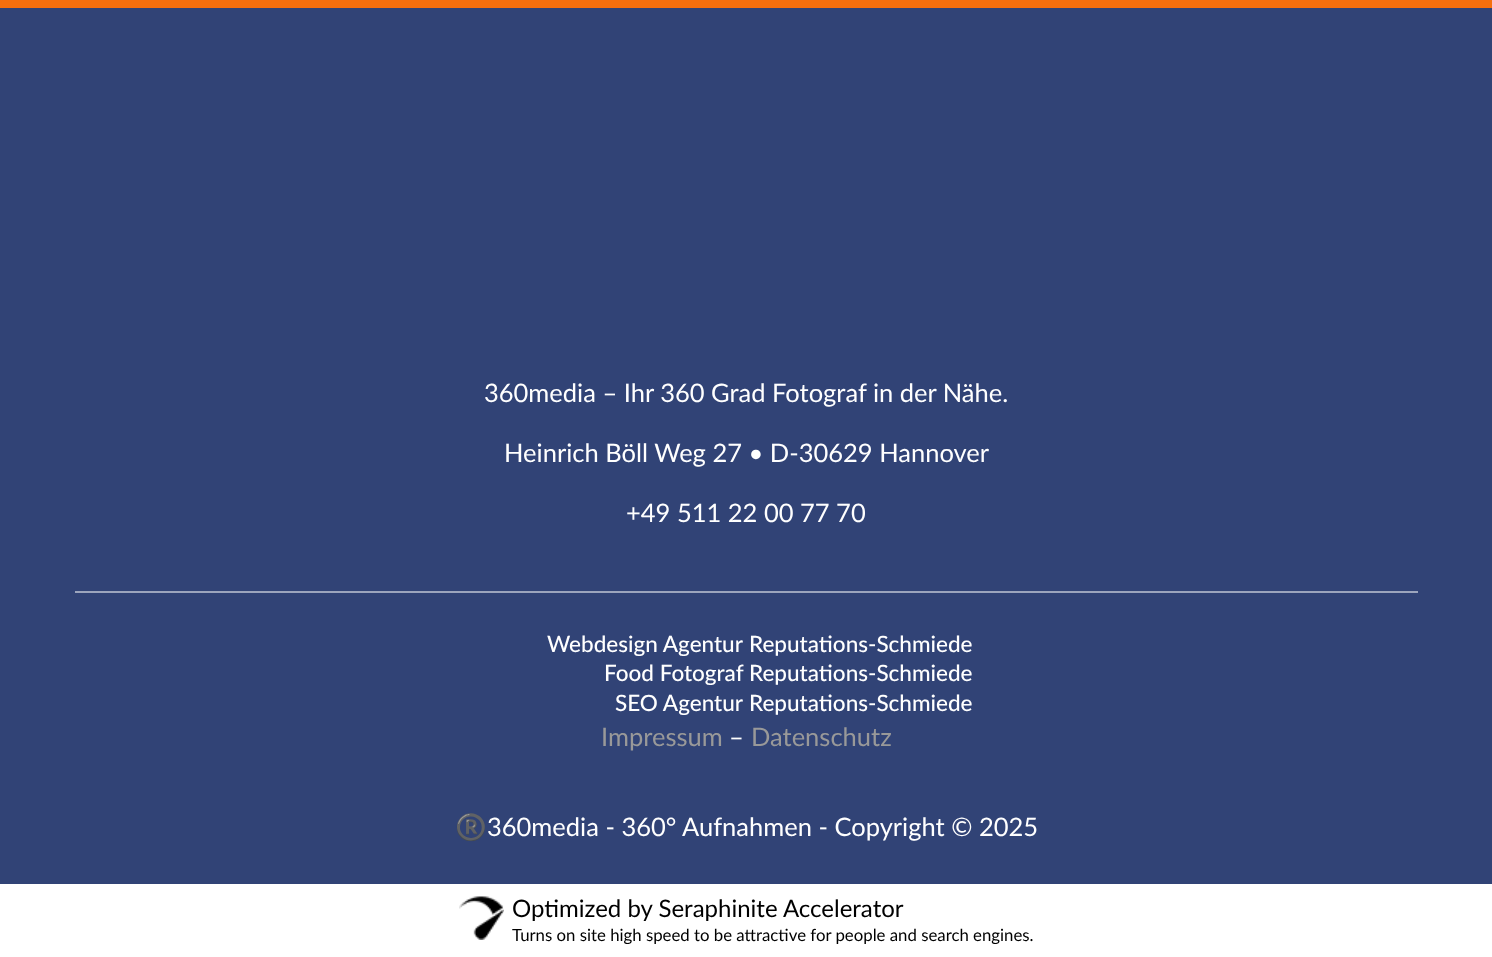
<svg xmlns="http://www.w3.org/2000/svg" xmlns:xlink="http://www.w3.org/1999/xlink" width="1492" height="957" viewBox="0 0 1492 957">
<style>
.cls-1{font:25.5px Lato;fill:#ffffff}
.cls-2{font:500 22.5px Lato;fill:#ffffff}
.cls-3{font:25.5px Lato;fill:#999999}
.cls-4{font:25.5px Noto Color Emoji;fill:#ffffff}
.cls-5{font:24px Lato;fill:#000000}
.cls-6{font:16.8px Lato;fill:#000000}
</style>
<rect width="100%" height="100%" fill="#ffffff"/>
<rect fill="#314376" x="0" y="8" width="1492" height="876"/>
<rect fill="#f66f0d" x="0" y="0" width="1492" height="8"/>
<rect fill="#9ca5bd" x="75" y="591" width="1343" height="2"/>
<image xlink:href="image0.png" x="459" y="896" width="45" height="44"/>
<text class="cls-1" x="484" y="402">360media – Ihr 360 Grad Fotograf in der Nähe.</text>
<text class="cls-1" x="504" y="462">Heinrich Böll Weg 27 • D-30629 Hannover</text>
<text class="cls-1" x="626" y="522">+49 511 22 00 77 70</text>
<text class="cls-2" x="547" y="652">Webdesign Agentur</text>
<text class="cls-2" x="749" y="652">Reputations-Schmiede</text>
<text class="cls-2" x="604" y="681">Food Fotograf</text>
<text class="cls-2" x="749" y="681">Reputations-Schmiede</text>
<text class="cls-2" x="615" y="711">SEO Agentur</text>
<text class="cls-2" x="749" y="711">Reputations-Schmiede</text>
<text class="cls-3" x="601" y="746">Impressum</text>
<text class="cls-1" x="729" y="746">–</text>
<text class="cls-3" x="751" y="746">Datenschutz</text>
<text class="cls-4" x="455" y="836">®️</text>
<text class="cls-1" x="487" y="836">360media - 360° Aufnahmen - Copyright © 2025</text>
<text class="cls-5" x="512" y="917">Optimized by Seraphinite Accelerator</text>
<text class="cls-6" x="512" y="941">Turns on site high speed to be attractive for people and search engines.</text>
</svg>
